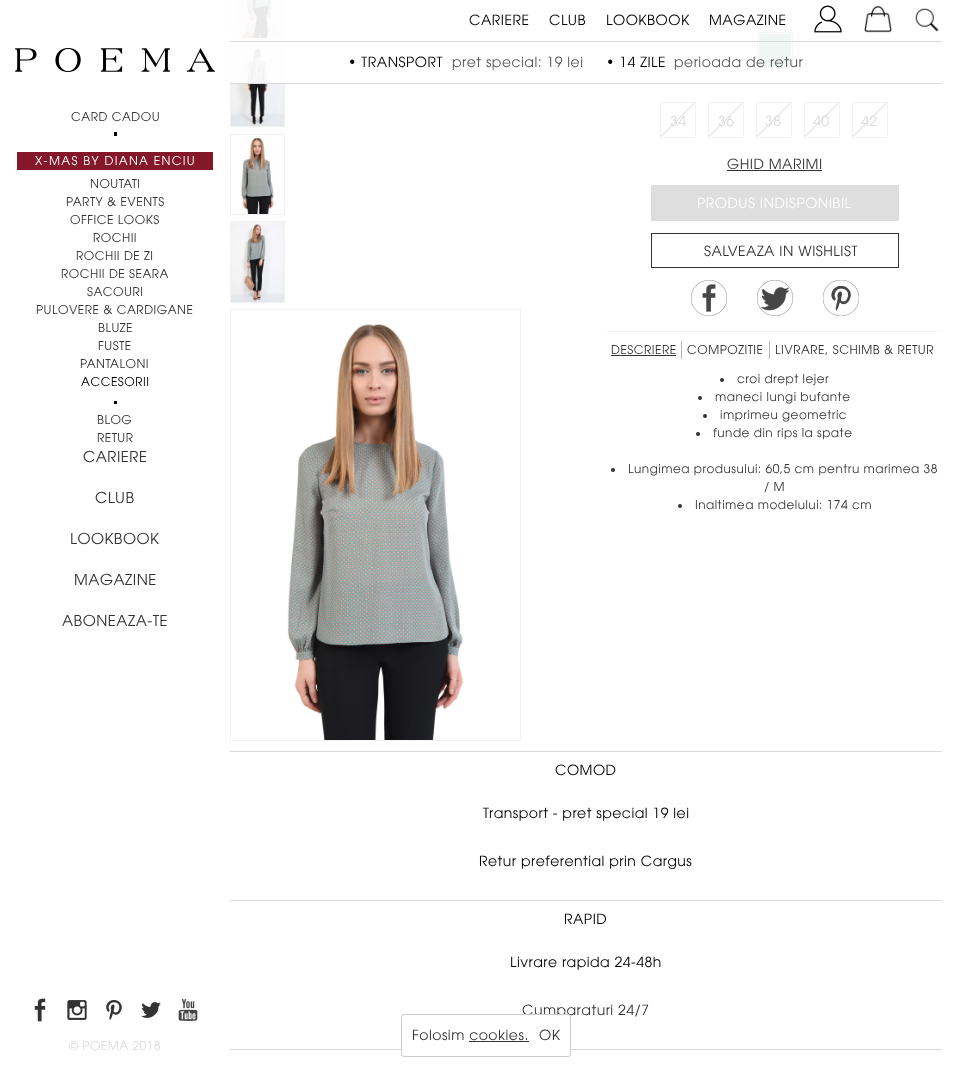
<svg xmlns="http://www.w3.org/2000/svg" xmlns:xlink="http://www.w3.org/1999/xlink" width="972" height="1065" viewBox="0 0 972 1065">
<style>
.cls-1{font:14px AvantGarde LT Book;letter-spacing:0.5px;fill:#000000}
.cls-2{font:14px AvantGarde LT Book;letter-spacing:0.5px;fill:#555555}
.cls-3{font:12px AvantGarde LT Book;letter-spacing:0.5px;fill:#333333}
.cls-4{font:12px AvantGarde LT Book;letter-spacing:1.3px;fill:#ffffff}
.cls-5{font:12px AvantGarde LT Book;letter-spacing:0.5px;fill:#000000}
.cls-6{font:15px AvantGarde LT Book;letter-spacing:0.5px;fill:#333333}
.cls-7{font:14px AvantGarde LT Book;letter-spacing:0.5px;fill:#dadbdc}
.cls-8{font:14px AvantGarde LT Book;letter-spacing:0.5px;fill:#333333}
.cls-9{font:14px AvantGarde LT Book;letter-spacing:0.5px;fill:#ffffff}
.cls-10{font:12px AvantGarde LT Book;letter-spacing:0.5px;fill:#dadbdc}
</style>
<rect width="100%" height="100%" fill="#ffffff"/>
<rect fill="none" stroke="#f2f2f2" x="230.5" y="-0.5" width="54" height="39"/>
<image xlink:href="image4.png" x="231" y="0" width="53" height="38"/>
<rect fill="none" stroke="#f2f2f2" x="230.5" y="46.5" width="54" height="80"/>
<image xlink:href="image5.png" x="231" y="47" width="53" height="79"/>
<rect fill="#6b9e8f" x="759" y="34" width="32" height="32"/>
<rect fill="none" stroke="#a6a6a6" x="757.5" y="32.5" width="35" height="35"/>
<rect fill="#ffffff" fill-opacity="0.9" x="230" y="0" width="563" height="84"/>
<image xlink:href="image0.png" x="814" y="5" width="28" height="28"/>
<image xlink:href="image1.png" x="15" y="48" width="200" height="24"/>
<rect fill="#dadada" x="230" y="41" width="712" height="1"/>
<rect fill="#dadadc" x="230" y="83" width="712" height="1"/>
<image xlink:href="image2.png" x="864" y="5" width="28" height="28"/>
<rect fill="#000000" x="114" y="132" width="3" height="4"/>
<image xlink:href="image3.png" x="915" y="8" width="24" height="24"/>
<rect fill="#84182a" x="17" y="152" width="196" height="18"/>
<rect fill="#000000" x="114" y="401" width="3" height="3"/>
<rect fill="none" stroke="#f2f2f2" x="230.5" y="134.5" width="54" height="80"/>
<image xlink:href="image6.png" x="240" y="135" width="35" height="79"/>
<rect fill="none" stroke="#f2f2f2" x="230.5" y="221.5" width="54" height="81"/>
<image xlink:href="image7.png" x="231" y="222" width="53" height="80"/>
<rect fill="none" stroke="#f2f2f2" x="230.5" y="309.5" width="290" height="431"/>
<image xlink:href="image8.png" x="287" y="324" width="177" height="416"/>
<image xlink:href="image9.png" x="660" y="102" width="36" height="36"/>
<rect fill="none" stroke="#f2f2f2" x="660.5" y="102.5" width="35" height="35" rx="1.5"/>
<image xlink:href="image9.png" x="708" y="102" width="36" height="36"/>
<rect fill="none" stroke="#f2f2f2" x="708.5" y="102.5" width="35" height="35" rx="1.5"/>
<image xlink:href="image9.png" x="756" y="102" width="36" height="36"/>
<rect fill="none" stroke="#f2f2f2" x="756.5" y="102.5" width="35" height="35" rx="1.5"/>
<image xlink:href="image9.png" x="804" y="102" width="36" height="36"/>
<rect fill="none" stroke="#f2f2f2" x="804.5" y="102.5" width="35" height="35" rx="1.5"/>
<image xlink:href="image9.png" x="852" y="102" width="36" height="36"/>
<rect fill="none" stroke="#f2f2f2" x="852.5" y="102.5" width="35" height="35" rx="1.5"/>
<rect fill="#333333" x="727" y="170" width="95" height="1"/>
<rect fill="#dedede" x="651" y="185" width="248" height="36"/>
<rect fill="none" stroke="#333333" x="651.5" y="233.5" width="247" height="34"/>
<image xlink:href="image10.png" x="691" y="280" width="36" height="36"/>
<image xlink:href="image11.png" x="757" y="280" width="36" height="36"/>
<image xlink:href="image12.png" x="823" y="280" width="36" height="36"/>
<rect fill="#f2f2f2" x="607" y="331" width="335" height="1"/>
<rect fill="#b3b3b3" x="681" y="341" width="1" height="18"/>
<rect fill="#333333" x="611" y="355" width="65" height="1"/>
<rect fill="#b3b3b3" x="769" y="341" width="1" height="18"/>
<circle fill="#333333" cx="722" cy="380" r="2"/>
<circle fill="#333333" cx="700" cy="398" r="2"/>
<circle fill="#333333" cx="705" cy="416" r="2"/>
<circle fill="#333333" cx="698" cy="434" r="2"/>
<circle fill="#333333" cx="613" cy="470" r="2"/>
<circle fill="#333333" cx="680" cy="506" r="2"/>
<rect fill="#dadada" x="230" y="751" width="712" height="1"/>
<rect fill="#dadada" x="230" y="900" width="712" height="1"/>
<rect fill="#dadada" x="230" y="1049" width="712" height="1"/>
<image xlink:href="image13.png" x="34" y="998" width="12" height="24"/>
<image xlink:href="image14.png" x="67" y="1000" width="20" height="20"/>
<image xlink:href="image15.png" x="106" y="1000" width="16" height="20"/>
<image xlink:href="image16.png" x="141" y="1002" width="20" height="16"/>
<image xlink:href="image17.png" x="178" y="999" width="20" height="22"/>
<text class="cls-1" x="469" y="25">CARIERE</text>
<text class="cls-1" x="549" y="25">CLUB</text>
<text class="cls-1" x="606" y="25">LOOKBOOK</text>
<text class="cls-1" x="709" y="25">MAGAZINE</text>
<text class="cls-1" x="348" y="67">• TRANSPORT</text>
<text class="cls-2" x="452" y="67">pret special: 19 lei</text>
<text class="cls-1" x="606" y="67">• 14 ZILE</text>
<text class="cls-2" x="674" y="67">perioada de retur</text>
<text class="cls-3" x="71" y="121">CARD CADOU</text>
<text class="cls-4" x="35" y="165">X-MAS BY DIANA ENCIU</text>
<text class="cls-3" x="90" y="188">NOUTATI</text>
<text class="cls-3" x="66" y="206">PARTY &amp; EVENTS</text>
<text class="cls-3" x="70" y="224">OFFICE LOOKS</text>
<text class="cls-3" x="93" y="242">ROCHII</text>
<text class="cls-3" x="76" y="260">ROCHII DE ZI</text>
<text class="cls-3" x="61" y="278">ROCHII DE SEARA</text>
<text class="cls-3" x="87" y="296">SACOURI</text>
<text class="cls-3" x="36" y="314">PULOVERE &amp; CARDIGANE</text>
<text class="cls-3"><tspan x="98" y="332">BLUZE</tspan><tspan x="98" y="350">FUSTE</tspan></text>
<text class="cls-3" x="80" y="368">PANTALONI</text>
<text class="cls-5" x="81" y="386">ACCESORII</text>
<text class="cls-3"><tspan x="97" y="424">BLOG</tspan><tspan x="97" y="442">RETUR</tspan></text>
<text class="cls-6" x="83" y="462">CARIERE</text>
<text class="cls-6" x="95" y="503">CLUB</text>
<text class="cls-6" x="70" y="544">LOOKBOOK</text>
<text class="cls-6" x="74" y="585">MAGAZINE</text>
<text class="cls-6" x="62" y="626">ABONEAZA-TE</text>
<text class="cls-7" x="670" y="126">34</text>
<text class="cls-7" x="718" y="126">36</text>
<text class="cls-7" x="765" y="126">38</text>
<text class="cls-7" x="813" y="126">40</text>
<text class="cls-7" x="861" y="126">42</text>
<text class="cls-8" x="727" y="169">GHID MARIMI</text>
<text class="cls-9" x="697" y="208">PRODUS INDISPONIBIL</text>
<text class="cls-8" x="704" y="256">SALVEAZA IN WISHLIST</text>
<text class="cls-3" x="611" y="354">DESCRIERE</text>
<text class="cls-3" x="687" y="354">COMPOZITIE</text>
<text class="cls-3" x="775" y="354">LIVRARE, SCHIMB &amp; RETUR</text>
<text class="cls-3" x="737" y="383">croi drept lejer</text>
<text class="cls-3" x="715" y="401">maneci lungi bufante</text>
<text class="cls-3" x="720" y="419">imprimeu geometric</text>
<text class="cls-3" x="713" y="437">funde din rips la spate</text>
<text class="cls-3" x="628" y="473">Lungimea produsului: 60,5 cm pentru marimea 38</text>
<text class="cls-3" x="764" y="491">/ M</text>
<text class="cls-3" x="695" y="509">Inaltimea modelului: 174 cm</text>
<text class="cls-1" x="555" y="775">COMOD</text>
<text class="cls-1" x="483" y="818">Transport - pret special 19 lei</text>
<text class="cls-1" x="479" y="866">Retur preferential prin Cargus</text>
<text class="cls-1" x="564" y="924">RAPID</text>
<text class="cls-1" x="510" y="967">Livrare rapida 24-48h</text>
<text class="cls-8" x="522" y="1015">Cumparaturi 24/7</text>
<rect fill="#ffffff" stroke="#cccccc" x="401.5" y="1014.5" width="169" height="42" rx="2.5"/>
<text class="cls-8" x="412" y="1040">Folosim cookies.</text>
<rect fill="#333333" x="469" y="1041" width="60" height="1"/>
<text class="cls-8" x="539" y="1040">OK</text>
<text class="cls-10" x="69" y="1050">© POEMA 2018</text>
</svg>
